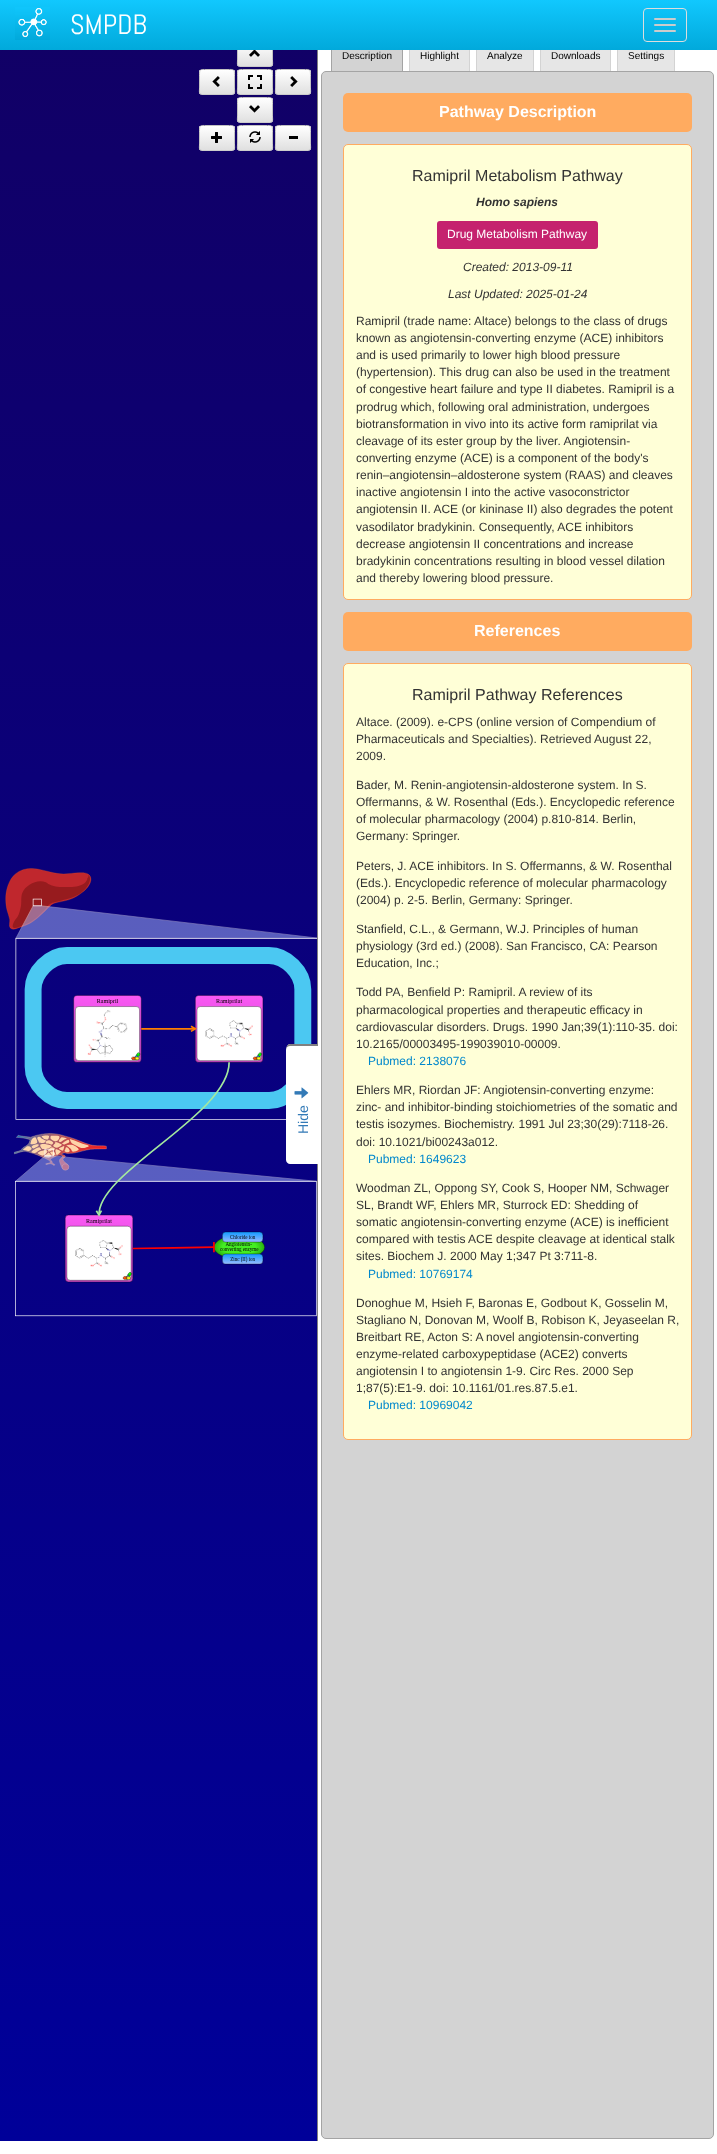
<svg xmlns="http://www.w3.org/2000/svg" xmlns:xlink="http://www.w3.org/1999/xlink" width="717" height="2154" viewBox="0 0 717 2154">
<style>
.cls-1{font:28px Abel;fill:#ffffff}
.cls-2{font:10px Liberation Sans;fill:#000000}
.cls-3{font:bold 16px Liberation Sans;fill:#ffffff}
.cls-4{font:16px Liberation Sans;fill:#333333}
.cls-5{font:italic bold 12px Liberation Sans;fill:#333333}
.cls-6{font:12px Liberation Sans;fill:#ffffff}
.cls-7{font:italic 12px Liberation Sans;fill:#333333}
.cls-8{font:12px Liberation Sans;fill:#333333}
.cls-9{font:12px Liberation Sans;fill:#0088cc}
.cls-10{font:14px Liberation Sans;fill:#337ab7}
</style>
<defs>
<linearGradient id="g1" gradientUnits="userSpaceOnUse" x1="358" y1="35" x2="359" y2="2141"><stop offset="0" stop-color="#110066"/><stop offset="1" stop-color="#000099"/></linearGradient>
<clipPath id="clip1"><rect x="237" y="41" width="36" height="26" rx="3"/></clipPath>
<linearGradient id="g2" gradientUnits="userSpaceOnUse" x1="255" y1="42" x2="255" y2="66"><stop offset="0" stop-color="#ffffff"/><stop offset="1" stop-color="#e0e0e0"/></linearGradient>
<linearGradient id="g3" gradientUnits="userSpaceOnUse" x1="359" y1="0" x2="359" y2="50"><stop offset="0" stop-color="#11c8fe"/><stop offset="1" stop-color="#01a9db"/></linearGradient>
<clipPath id="clip2"><rect x="199" y="69" width="36" height="26" rx="3"/></clipPath>
<linearGradient id="g4" gradientUnits="userSpaceOnUse" x1="217" y1="70" x2="217" y2="94"><stop offset="0" stop-color="#ffffff"/><stop offset="1" stop-color="#e0e0e0"/></linearGradient>
<clipPath id="clip3"><rect x="237" y="69" width="36" height="26" rx="3"/></clipPath>
<linearGradient id="g5" gradientUnits="userSpaceOnUse" x1="255" y1="70" x2="255" y2="94"><stop offset="0" stop-color="#ffffff"/><stop offset="1" stop-color="#e0e0e0"/></linearGradient>
<clipPath id="clip4"><rect x="275" y="69" width="36" height="26" rx="3"/></clipPath>
<linearGradient id="g6" gradientUnits="userSpaceOnUse" x1="293" y1="70" x2="293" y2="94"><stop offset="0" stop-color="#ffffff"/><stop offset="1" stop-color="#e0e0e0"/></linearGradient>
<clipPath id="clip5"><rect x="237" y="97" width="36" height="26" rx="3"/></clipPath>
<linearGradient id="g7" gradientUnits="userSpaceOnUse" x1="255" y1="98" x2="255" y2="122"><stop offset="0" stop-color="#ffffff"/><stop offset="1" stop-color="#e0e0e0"/></linearGradient>
<clipPath id="clip6"><rect x="199" y="125" width="36" height="26" rx="3"/></clipPath>
<linearGradient id="g8" gradientUnits="userSpaceOnUse" x1="217" y1="126" x2="217" y2="150"><stop offset="0" stop-color="#ffffff"/><stop offset="1" stop-color="#e0e0e0"/></linearGradient>
<clipPath id="clip7"><rect x="237" y="125" width="36" height="26" rx="3"/></clipPath>
<linearGradient id="g9" gradientUnits="userSpaceOnUse" x1="255" y1="126" x2="255" y2="150"><stop offset="0" stop-color="#ffffff"/><stop offset="1" stop-color="#e0e0e0"/></linearGradient>
<clipPath id="clip8"><rect x="275" y="125" width="36" height="26" rx="3"/></clipPath>
<linearGradient id="g10" gradientUnits="userSpaceOnUse" x1="293" y1="126" x2="293" y2="150"><stop offset="0" stop-color="#ffffff"/><stop offset="1" stop-color="#e0e0e0"/></linearGradient>
</defs>
<rect width="100%" height="100%" fill="#ffffff"/>
<rect fill="url(#g1)" x="0" y="50" width="317" height="2091"/>
<g clip-path="url(#clip1)">
<rect fill="url(#g2)" x="237" y="50" width="36" height="16"/>
</g>
<path fill="none" stroke="#cccccc" d="M272 66C271.5 66 270.5 66.5 270 66.5H240C239.5 66.5 238.5 66 238 66"/>
<path fill="none" stroke="#c2c2c2" d="M238 66C237 64.5 237.5 62 237.5 60.5V47.5C237.5 40.5 238 41.5 245 41.5H265C272 41.5 272.5 40.5 272.5 47.5V60.5C272.5 62 273 64.5 272 66"/>
<rect fill="#d3d3d3" x="332" y="50" width="70" height="21"/>
<rect fill="#d3d3d3" stroke="#a4a4a4" x="321.5" y="71.5" width="392" height="2067" rx="4.5"/>
<rect fill="none" stroke="#a4a4a4" x="331.5" y="41.5" width="71" height="30"/>
<rect fill="#e6e6e6" x="410" y="50" width="59" height="21"/>
<path fill="#d3d3d3" fill-rule="evenodd" d="M413 41H466C468 41 470 43 470 45V71H409V45C409 43 411 41 413 41ZM413 42H466C468 42 469 43 469 45V71H410V45C410 43 411 42 413 42Z"/>
<rect fill="#e6e6e6" x="477" y="50" width="56" height="21"/>
<path fill="#d3d3d3" fill-rule="evenodd" d="M480 41H530C532 41 534 43 534 45V71H476V45C476 43 478 41 480 41ZM480 42H530C532 42 533 43 533 45V71H477V45C477 43 478 42 480 42Z"/>
<rect fill="#e6e6e6" x="541" y="50" width="69" height="21"/>
<path fill="#d3d3d3" fill-rule="evenodd" d="M544 41H607C609 41 611 43 611 45V71H540V45C540 43 542 41 544 41ZM544 42H607C609 42 610 43 610 45V71H541V45C541 43 542 42 544 42Z"/>
<rect fill="#e6e6e6" x="618" y="50" width="56" height="21"/>
<path fill="#d3d3d3" fill-rule="evenodd" d="M621 41H671C673 41 675 43 675 45V71H617V45C617 43 619 41 621 41ZM621 42H671C673 42 674 43 674 45V71H618V45C618 43 619 42 621 42Z"/>
<rect fill="url(#g3)" x="0" y="0" width="717" height="50"/>
<image xlink:href="image0.png" x="15" y="7" width="35" height="33"/>
<rect fill="none" stroke="#dddddd" x="643.5" y="8.5" width="43" height="33" rx="3.5"/>
<rect fill="#cccccc" x="654" y="18" width="22" height="2" rx="1"/>
<rect fill="#cccccc" x="654" y="24" width="22" height="2" rx="1"/>
<rect fill="#cccccc" x="654" y="30" width="22" height="2" rx="1"/>
<image xlink:href="image1.png" x="5" y="868" width="312" height="449"/>
<image xlink:href="image2.png" x="249" y="50" width="11" height="7"/>
<g clip-path="url(#clip2)">
<rect fill="url(#g4)" x="199" y="70" width="36" height="24"/>
</g>
<path fill="none" stroke="#cccccc" d="M234 94C233.5 94 232.5 94.5 232 94.5H202C201.5 94.5 200.5 94 200 94"/>
<path fill="none" stroke="#c2c2c2" d="M200 94C199 92.5 199.5 90 199.5 88.5V75.5C199.5 68.5 200 69.5 207 69.5H227C234 69.5 234.5 68.5 234.5 75.5V88.5C234.5 90 235 92.5 234 94"/>
<image xlink:href="image3.png" x="212" y="76" width="8" height="11"/>
<g clip-path="url(#clip3)">
<rect fill="url(#g5)" x="237" y="70" width="36" height="24"/>
</g>
<path fill="none" stroke="#cccccc" d="M272 94C271.5 94 270.5 94.5 270 94.5H240C239.5 94.5 238.5 94 238 94"/>
<path fill="none" stroke="#c2c2c2" d="M238 94C237 92.5 237.5 90 237.5 88.5V75.5C237.5 68.5 238 69.5 245 69.5H265C272 69.5 272.5 68.5 272.5 75.5V88.5C272.5 90 273 92.5 272 94"/>
<image xlink:href="image4.png" x="248" y="75" width="14" height="14"/>
<g clip-path="url(#clip4)">
<rect fill="url(#g6)" x="275" y="70" width="36" height="24"/>
</g>
<path fill="none" stroke="#cccccc" d="M310 94C309.5 94 308.5 94.5 308 94.5H278C277.5 94.5 276.5 94 276 94"/>
<path fill="none" stroke="#c2c2c2" d="M276 94C275 92.5 275.5 90 275.5 88.5V75.5C275.5 68.5 276 69.5 283 69.5H303C310 69.5 310.5 68.5 310.5 75.5V88.5C310.5 90 311 92.5 310 94"/>
<image xlink:href="image5.png" x="290" y="76" width="8" height="11"/>
<g clip-path="url(#clip5)">
<rect fill="url(#g7)" x="237" y="98" width="36" height="24"/>
</g>
<path fill="none" stroke="#cccccc" d="M272 122C271.5 122 270.5 122.5 270 122.5H240C239.5 122.5 238.5 122 238 122"/>
<path fill="none" stroke="#c2c2c2" d="M238 122C237 120.5 237.5 118 237.5 116.5V103.5C237.5 96.5 238 97.5 245 97.5H265C272 97.5 272.5 96.5 272.5 103.5V116.5C272.5 118 273 120.5 272 122"/>
<image xlink:href="image6.png" x="249" y="105" width="11" height="8"/>
<g clip-path="url(#clip6)">
<rect fill="url(#g8)" x="199" y="126" width="36" height="24"/>
</g>
<path fill="none" stroke="#cccccc" d="M234 150C233.5 150 232.5 150.5 232 150.5H202C201.5 150.5 200.5 150 200 150"/>
<path fill="none" stroke="#c2c2c2" d="M200 150C199 148.5 199.5 146 199.5 144.5V131.5C199.5 124.5 200 125.5 207 125.5H227C234 125.5 234.5 124.5 234.5 131.5V144.5C234.5 146 235 148.5 234 150"/>
<image xlink:href="image7.png" x="211" y="132" width="11" height="11"/>
<g clip-path="url(#clip7)">
<rect fill="url(#g9)" x="237" y="126" width="36" height="24"/>
</g>
<path fill="none" stroke="#cccccc" d="M272 150C271.5 150 270.5 150.5 270 150.5H240C239.5 150.5 238.5 150 238 150"/>
<path fill="none" stroke="#c2c2c2" d="M238 150C237 148.5 237.5 146 237.5 144.5V131.5C237.5 124.5 238 125.5 245 125.5H265C272 125.5 272.5 124.5 272.5 131.5V144.5C272.5 146 273 148.5 272 150"/>
<image xlink:href="image8.png" x="249" y="131" width="12" height="12"/>
<g clip-path="url(#clip8)">
<rect fill="url(#g10)" x="275" y="126" width="36" height="24"/>
</g>
<path fill="none" stroke="#cccccc" d="M310 150C309.5 150 308.5 150.5 308 150.5H278C277.5 150.5 276.5 150 276 150"/>
<path fill="none" stroke="#c2c2c2" d="M276 150C275 148.5 275.5 146 275.5 144.5V131.5C275.5 124.5 276 125.5 283 125.5H303C310 125.5 310.5 124.5 310.5 131.5V144.5C310.5 146 311 148.5 310 150"/>
<rect fill="#000000" x="289" y="136" width="9" height="3"/>
<rect fill="#808080" x="317" y="50" width="1" height="2091"/>
<rect fill="#ffab60" x="343" y="93" width="349" height="39" rx="5"/>
<rect fill="#ffffd7" stroke="#ffab60" x="343.5" y="144.5" width="348" height="455" rx="4.5"/>
<rect fill="#c5226e" x="437" y="221" width="161" height="28" rx="3"/>
<rect fill="#ffab60" x="343" y="612" width="349" height="39" rx="5"/>
<rect fill="#ffffd7" stroke="#ffab60" x="343.5" y="663.5" width="348" height="776" rx="4.5"/>
<path fill="#ffffff" d="M286 1160V1050C286 1047 288 1044 290 1044H318V1164H290C288 1164 286 1162 286 1160Z"/>
<path fill="#808080" fill-rule="evenodd" d="M286 1160V1050C286 1047 288 1044 290 1044H318V1164H290C288 1164 286 1162 286 1160ZM286 1160V1050C286 1047 288 1046 290 1046H318V1164H290C288 1164 286 1162 286 1160Z"/>
<image xlink:href="image9.png" x="294" y="1087" width="15" height="12"/>
<text class="cls-1" x="70" y="34">SMPDB</text>
<text class="cls-2" x="342" y="59">Description</text>
<text class="cls-2" x="420" y="59">Highlight</text>
<text class="cls-2" x="487" y="59">Analyze</text>
<text class="cls-2" x="551" y="59">Downloads</text>
<text class="cls-2" x="628" y="59">Settings</text>
<text class="cls-3" x="439" y="117">Pathway Description</text>
<text class="cls-4" x="412" y="181">Ramipril Metabolism Pathway</text>
<text class="cls-5" x="476" y="206">Homo sapiens</text>
<text class="cls-6" x="447" y="238">Drug Metabolism Pathway</text>
<text class="cls-7" x="463" y="271">Created: 2013-09-11</text>
<text class="cls-7" x="448" y="298">Last Updated: 2025-01-24</text>
<text class="cls-8"><tspan x="356" y="325">Ramipril (trade name: Altace) belongs to the class of drugs</tspan><tspan x="356" y="342">known as angiotensin-converting enzyme (ACE) inhibitors</tspan><tspan x="356" y="359">and is used primarily to lower high blood pressure</tspan><tspan x="356" y="376">(hypertension). This drug can also be used in the treatment</tspan><tspan x="356" y="393">of congestive heart failure and type II diabetes. Ramipril is a</tspan><tspan x="356" y="411">prodrug which, following oral administration, undergoes</tspan><tspan x="356" y="428">biotransformation in vivo into its active form ramiprilat via</tspan><tspan x="356" y="445">cleavage of its ester group by the liver. Angiotensin-</tspan><tspan x="356" y="462">converting enzyme (ACE) is a component of the body's</tspan><tspan x="356" y="479">renin–angiotensin–aldosterone system (RAAS) and cleaves</tspan><tspan x="356" y="496">inactive angiotensin I into the active vasoconstrictor</tspan><tspan x="356" y="513">angiotensin II. ACE (or kininase II) also degrades the potent</tspan><tspan x="356" y="531">vasodilator bradykinin. Consequently, ACE inhibitors</tspan><tspan x="356" y="548">decrease angiotensin II concentrations and increase</tspan><tspan x="356" y="565">bradykinin concentrations resulting in blood vessel dilation</tspan><tspan x="356" y="582">and thereby lowering blood pressure.</tspan></text>
<text class="cls-3" x="474" y="636">References</text>
<text class="cls-4" x="412" y="700">Ramipril Pathway References</text>
<text class="cls-8"><tspan x="356" y="726">Altace. (2009). e-CPS (online version of Compendium of</tspan><tspan x="356" y="743">Pharmaceuticals and Specialties). Retrieved August 22,</tspan><tspan x="356" y="760">2009.</tspan></text>
<text class="cls-8"><tspan x="356" y="789">Bader, M. Renin-angiotensin-aldosterone system. In S.</tspan><tspan x="356" y="806">Offermanns, &amp; W. Rosenthal (Eds.). Encyclopedic reference</tspan><tspan x="356" y="823">of molecular pharmacology (2004) p.810-814. Berlin,</tspan><tspan x="356" y="840">Germany: Springer.</tspan></text>
<text class="cls-8"><tspan x="356" y="870">Peters, J. ACE inhibitors. In S. Offermanns, &amp; W. Rosenthal</tspan><tspan x="356" y="887">(Eds.). Encyclopedic reference of molecular pharmacology</tspan><tspan x="356" y="904">(2004) p. 2-5. Berlin, Germany: Springer.</tspan></text>
<text class="cls-8"><tspan x="356" y="933">Stanfield, C.L., &amp; Germann, W.J. Principles of human</tspan><tspan x="356" y="950">physiology (3rd ed.) (2008). San Francisco, CA: Pearson</tspan><tspan x="356" y="967">Education, Inc.;</tspan></text>
<text class="cls-8"><tspan x="356" y="996">Todd PA, Benfield P: Ramipril. A review of its</tspan><tspan x="356" y="1014">pharmacological properties and therapeutic efficacy in</tspan><tspan x="356" y="1031">cardiovascular disorders. Drugs. 1990 Jan;39(1):110-35. doi:</tspan><tspan x="356" y="1048">10.2165/00003495-199039010-00009.</tspan></text>
<text class="cls-9" x="368" y="1065">Pubmed: 2138076</text>
<text class="cls-8"><tspan x="356" y="1094">Ehlers MR, Riordan JF: Angiotensin-converting enzyme:</tspan><tspan x="356" y="1111">zinc- and inhibitor-binding stoichiometries of the somatic and</tspan><tspan x="356" y="1128">testis isozymes. Biochemistry. 1991 Jul 23;30(29):7118-26.</tspan><tspan x="356" y="1146">doi: 10.1021/bi00243a012.</tspan></text>
<text class="cls-9" x="368" y="1163">Pubmed: 1649623</text>
<text class="cls-8"><tspan x="356" y="1192">Woodman ZL, Oppong SY, Cook S, Hooper NM, Schwager</tspan><tspan x="356" y="1209">SL, Brandt WF, Ehlers MR, Sturrock ED: Shedding of</tspan><tspan x="356" y="1226">somatic angiotensin-converting enzyme (ACE) is inefficient</tspan><tspan x="356" y="1243">compared with testis ACE despite cleavage at identical stalk</tspan><tspan x="356" y="1260">sites. Biochem J. 2000 May 1;347 Pt 3:711-8.</tspan></text>
<text class="cls-9" x="368" y="1278">Pubmed: 10769174</text>
<text class="cls-8"><tspan x="356" y="1307">Donoghue M, Hsieh F, Baronas E, Godbout K, Gosselin M,</tspan><tspan x="356" y="1324">Stagliano N, Donovan M, Woolf B, Robison K, Jeyaseelan R,</tspan><tspan x="356" y="1341">Breitbart RE, Acton S: A novel angiotensin-converting</tspan><tspan x="356" y="1358">enzyme-related carboxypeptidase (ACE2) converts</tspan><tspan x="356" y="1375">angiotensin I to angiotensin 1-9. Circ Res. 2000 Sep</tspan><tspan x="356" y="1392">1;87(5):E1-9. doi: 10.1161/01.res.87.5.e1.</tspan></text>
<text class="cls-9" x="368" y="1409">Pubmed: 10969042</text>
<text class="cls-10" x="308" y="1134" transform="rotate(-90 308 1134)">Hide</text>
</svg>
